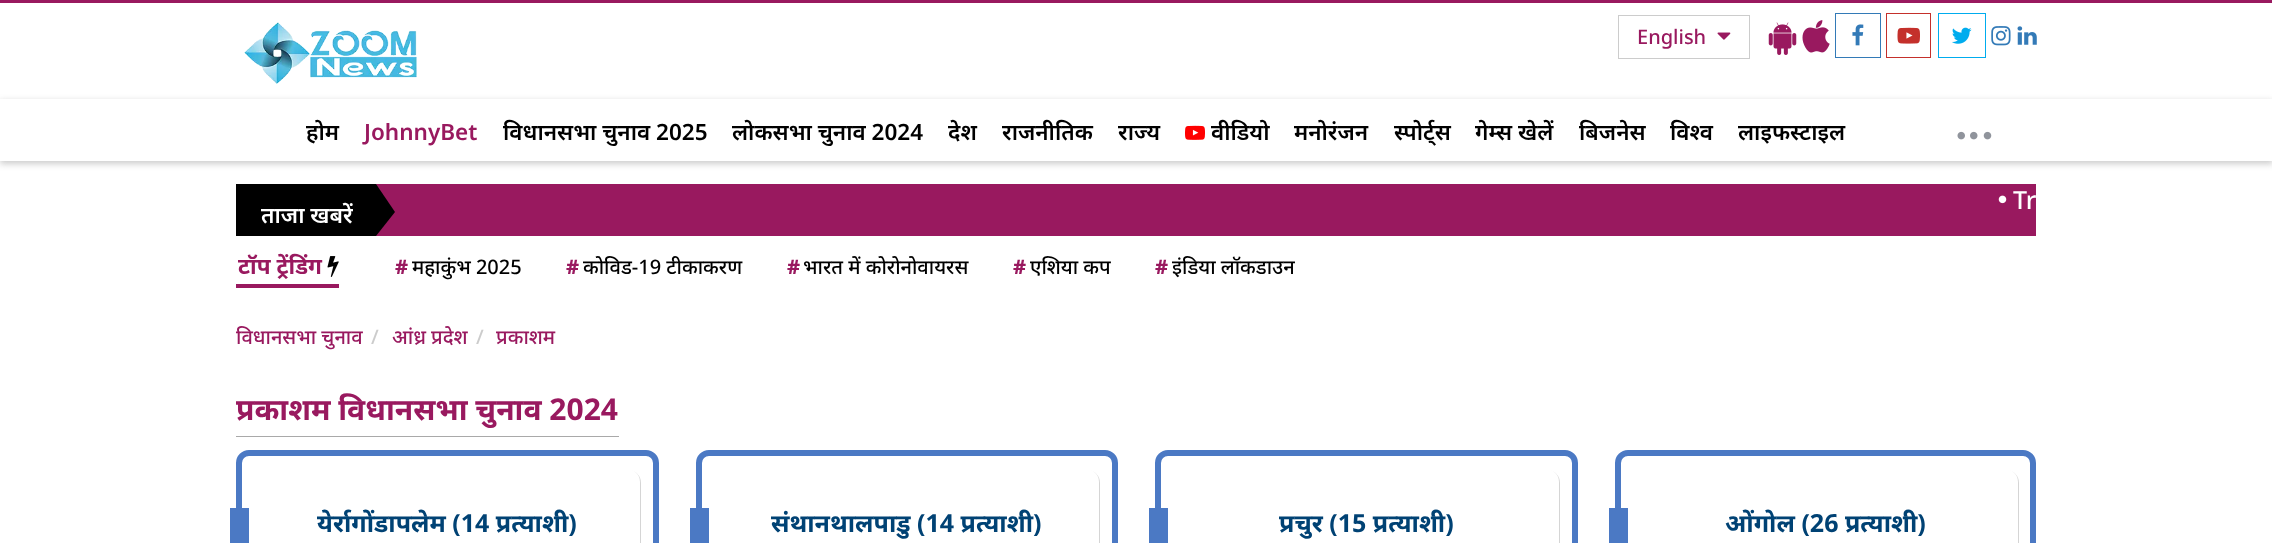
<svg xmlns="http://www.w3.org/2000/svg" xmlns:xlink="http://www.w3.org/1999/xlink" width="2272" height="543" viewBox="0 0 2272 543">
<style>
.cls-1{font:500 20px Noto Sans;fill:#99195f}
.cls-2{font:600 22.5px Noto Sans;fill:#000000}
.cls-3{font:600 22.5px Noto Sans;fill:#99195f}
.cls-4{font:500 25px Noto Sans;fill:#ffffff}
.cls-5{font:600 22.5px Noto Sans;fill:#ffffff}
.cls-6{font:bold 22.5px Noto Sans;fill:#99195f}
.cls-7{font:800 20px Noto Sans;fill:#99195f}
.cls-8{font:500 20px Noto Sans;fill:#000000}
.cls-9{font:500 20px Noto Sans;fill:#cccccc}
.cls-10{font:bold 30px Noto Sans;fill:#99195f}
.cls-11{font:bold 25px Noto Sans;fill:#004274}
</style>
<defs>
<clipPath id="clip1"><path d="M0 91H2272V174H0ZM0 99H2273V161H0Z" clip-rule="evenodd"/></clipPath>
</defs>
<rect width="100%" height="100%" fill="#ffffff"/>
<rect fill="#99195f" x="0" y="0" width="2272" height="3"/>
<image xlink:href="image0.png" x="244" y="22" width="173" height="62"/>
<rect fill="none" stroke="#cccccc" x="1618.5" y="15.5" width="131" height="43"/>
<image xlink:href="image1.png" x="1717" y="32" width="14" height="8"/>
<image xlink:href="image2.png" x="1768" y="22" width="29" height="33"/>
<image xlink:href="image3.png" x="1802" y="20" width="28" height="33"/>
<rect fill="none" stroke="#337ab7" x="1835.5" y="13.5" width="45" height="44"/>
<image xlink:href="image4.png" x="1852" y="24" width="12" height="22"/>
<rect fill="none" stroke="#c4302b" x="1886.5" y="13.5" width="44" height="44"/>
<image xlink:href="image5.png" x="1897" y="27" width="23" height="17"/>
<rect fill="none" stroke="#00acee" x="1938.5" y="13.5" width="47" height="44"/>
<image xlink:href="image6.png" x="1952" y="27" width="20" height="17"/>
<image xlink:href="image7.png" x="1991" y="26" width="20" height="20"/>
<image xlink:href="image8.png" x="2017" y="26" width="20" height="19"/>
<g clip-path="url(#clip1)">
<rect fill="#585858" fill-opacity="0.3" filter="blur(3px)" x="0" y="101" width="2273" height="63"/>
</g>
<image xlink:href="image9.png" x="1185" y="125" width="20" height="15"/>
<image xlink:href="image10.png" x="1957" y="131" width="8" height="9"/>
<image xlink:href="image11.png" x="1970" y="131" width="8" height="9"/>
<image xlink:href="image12.png" x="1983" y="131" width="9" height="9"/>
<rect fill="#99195f" x="376" y="184" width="1660" height="52"/>
<image xlink:href="image13.png" x="1998" y="195" width="9" height="9"/>
<rect fill="#000000" x="236" y="184" width="140" height="52"/>
<path fill="#000000" d="M376 236V184L395 212Z"/>
<rect fill="#99195f" x="236" y="284" width="103" height="4"/>
<image xlink:href="image14.png" x="327" y="256" width="12" height="21"/>
<rect fill="#a9a9a9" x="236" y="436" width="383" height="1"/>
<rect fill="none" stroke="#4b79c4" stroke-width="6" x="239" y="453" width="417" height="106" rx="10"/>
<rect fill="#4b79c4" x="230" y="508" width="19" height="35"/>
<rect fill="#d5d5d5" filter="blur(0.5px)" x="256" y="470" width="385" height="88" rx="13"/>
<rect fill="#ffffff" x="255" y="469" width="385" height="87" rx="13"/>
<rect fill="none" stroke="#4b79c4" stroke-width="6" x="699" y="453" width="416" height="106" rx="10"/>
<rect fill="#4b79c4" x="690" y="508" width="19" height="35"/>
<rect fill="#d5d5d5" filter="blur(0.5px)" x="716" y="470" width="384" height="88" rx="13"/>
<rect fill="#ffffff" x="715" y="469" width="384" height="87" rx="13"/>
<rect fill="none" stroke="#4b79c4" stroke-width="6" x="1158" y="453" width="417" height="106" rx="10"/>
<rect fill="#4b79c4" x="1149" y="508" width="19" height="35"/>
<rect fill="#d5d5d5" filter="blur(0.5px)" x="1175" y="470" width="385" height="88" rx="13"/>
<rect fill="#ffffff" x="1174" y="469" width="385" height="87" rx="13"/>
<rect fill="none" stroke="#4b79c4" stroke-width="6" x="1618" y="453" width="415" height="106" rx="10"/>
<rect fill="#4b79c4" x="1609" y="508" width="19" height="35"/>
<rect fill="#d5d5d5" filter="blur(0.5px)" x="1635" y="470" width="384" height="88" rx="13"/>
<rect fill="#ffffff" x="1634" y="469" width="384" height="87" rx="13"/>
<text class="cls-1" x="1637" y="44">English</text>
<text class="cls-2" x="306" y="140">होम</text>
<text class="cls-3" x="364" y="140">JohnnyBet</text>
<text class="cls-2" x="503" y="140">विधानसभा चुनाव 2025</text>
<text class="cls-2" x="732" y="140">लोकसभा चुनाव 2024</text>
<text class="cls-2" x="948" y="140">देश</text>
<text class="cls-2" x="1002" y="140">राजनीतिक</text>
<text class="cls-2" x="1118" y="140">राज्य</text>
<text class="cls-2" x="1211" y="140">वीडियो</text>
<text class="cls-2" x="1294" y="140">मनोरंजन</text>
<text class="cls-2" x="1394" y="140">स्पोर्ट्स</text>
<text class="cls-2" x="1475" y="140">गेम्स खेलें</text>
<text class="cls-2" x="1579" y="140">बिजनेस</text>
<text class="cls-2" x="1670" y="140">विश्व</text>
<text class="cls-2" x="1738" y="140">लाइफस्टाइल</text>
<text class="cls-4" x="2013" y="209">Tr</text>
<text class="cls-5" x="261" y="223">ताजा खबरें</text>
<text class="cls-6" x="238" y="274">टॉप ट्रेंडिंग</text>
<text class="cls-7" x="395" y="274">#</text>
<text class="cls-8" x="412" y="274">महाकुंभ 2025</text>
<text class="cls-7" x="566" y="274">#</text>
<text class="cls-8" x="583" y="274">कोविड-19 टीकाकरण</text>
<text class="cls-7" x="787" y="274">#</text>
<text class="cls-8" x="803" y="274">भारत में कोरोनोवायरस</text>
<text class="cls-7" x="1013" y="274">#</text>
<text class="cls-8" x="1030" y="274">एशिया कप</text>
<text class="cls-7" x="1155" y="274">#</text>
<text class="cls-8" x="1172" y="274">इंडिया लॉकडाउन</text>
<text class="cls-1" x="236" y="344">विधानसभा चुनाव</text>
<text class="cls-9" x="371" y="344">/</text>
<text class="cls-1" x="392" y="344">आंध्र प्रदेश</text>
<text class="cls-9" x="476" y="344">/</text>
<text class="cls-1" x="496" y="344">प्रकाशम</text>
<text class="cls-10" x="236" y="420">प्रकाशम विधानसभा चुनाव 2024</text>
<text class="cls-11" x="317" y="532">येर्रागोंडापलेम (14 प्रत्याशी)</text>
<text class="cls-11" x="771" y="532">संथानथालपाडु (14 प्रत्याशी)</text>
<text class="cls-11" x="1279" y="532">प्रचुर (15 प्रत्याशी)</text>
<text class="cls-11" x="1725" y="532">ओंगोल (26 प्रत्याशी)</text>
</svg>
